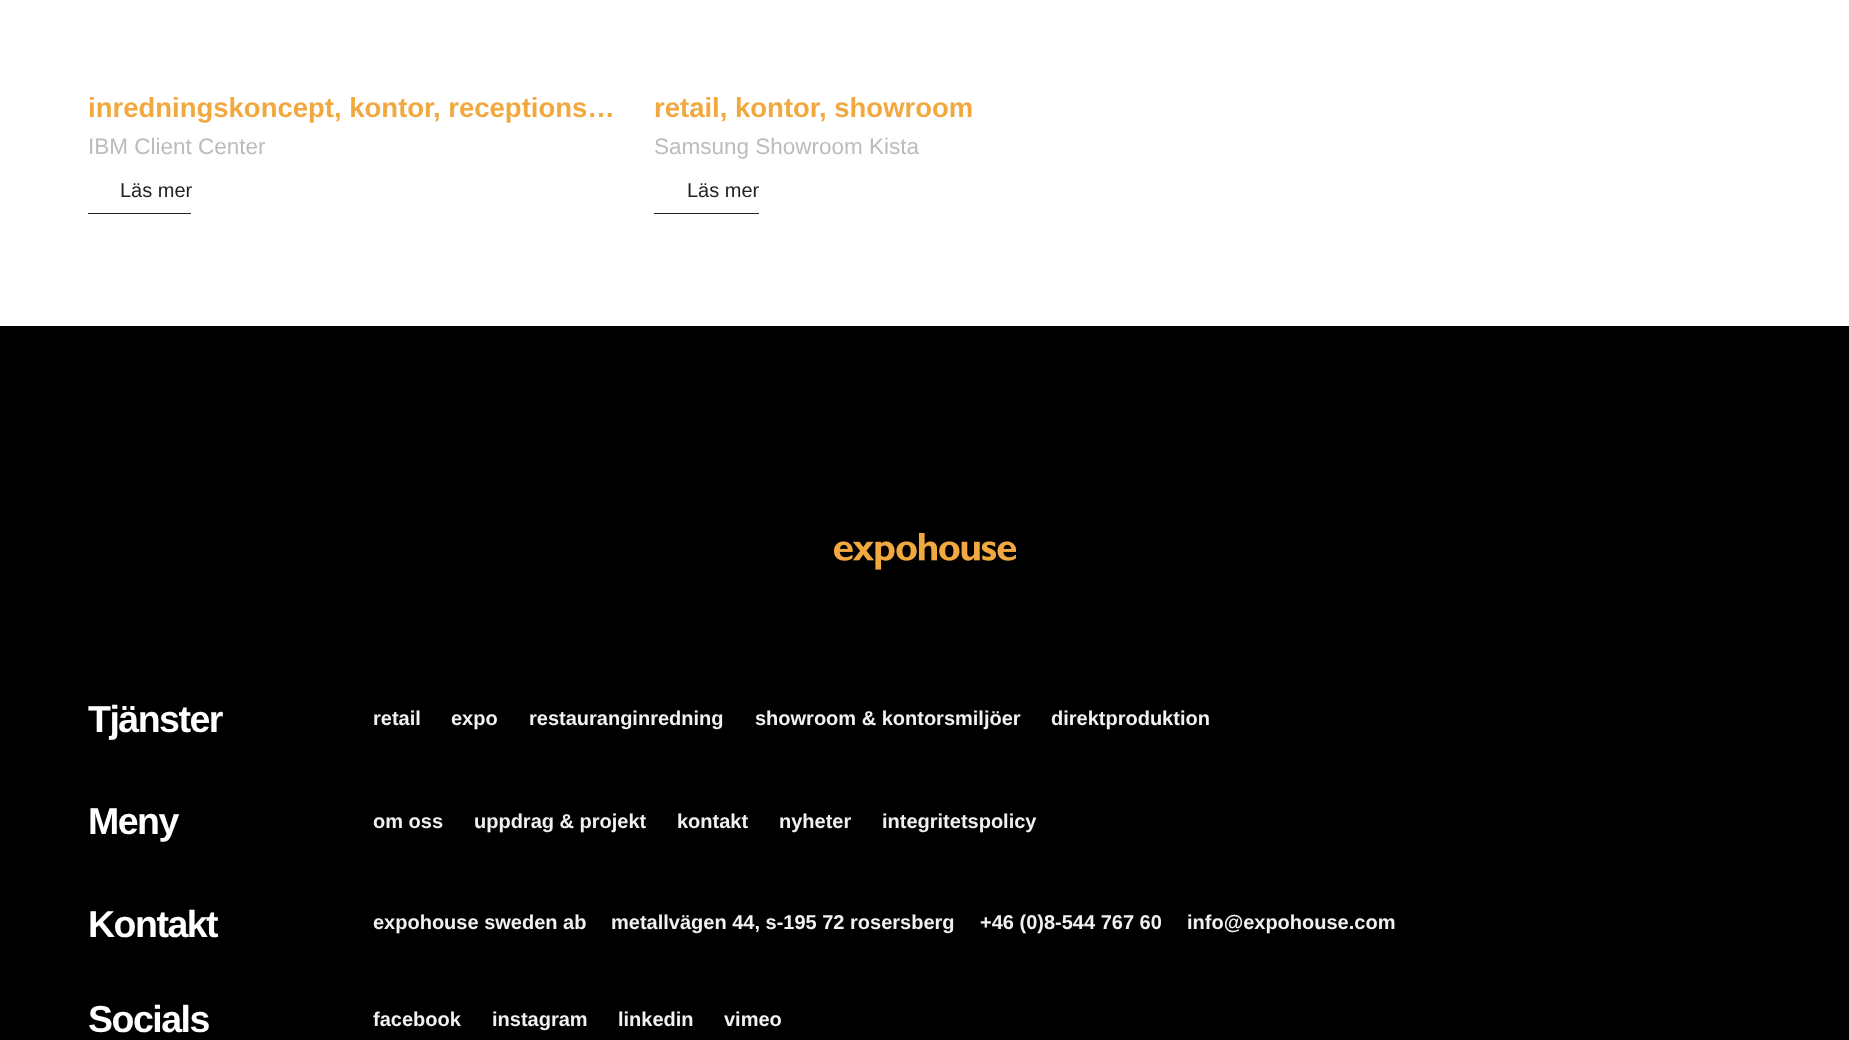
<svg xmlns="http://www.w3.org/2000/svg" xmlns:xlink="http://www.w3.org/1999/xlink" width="1849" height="1040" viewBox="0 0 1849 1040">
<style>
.cls-1{font:bold 27.5px Liberation Sans;fill:#f1a93f}
.cls-2{font:22.5px Liberation Sans;fill:#bcbcbc}
.cls-3{font:20px Liberation Sans;fill:#222222}
.cls-4{font:bold 37.5px Liberation Sans;letter-spacing:-1.5px;fill:#ffffff}
.cls-5{font:bold 20px Liberation Sans;fill:#f1f1f1}
</style>
<rect width="100%" height="100%" fill="#ffffff"/>
<rect fill="#222222" x="88" y="213" width="103" height="1"/>
<rect fill="#222222" x="654" y="213" width="105" height="1"/>
<rect fill="#000000" x="0" y="326" width="1849" height="714"/>
<image xlink:href="image0.png" x="834" y="533" width="182" height="37"/>
<text class="cls-1" x="88" y="117">inredningskoncept, kontor</text>
<text class="cls-1" x="433" y="117">, receptions…</text>
<text class="cls-2" x="88" y="154">IBM Client Center</text>
<text class="cls-3" x="120" y="197">Läs mer</text>
<text class="cls-1" x="654" y="117">retail, kontor</text>
<text class="cls-1" x="819" y="117">, showroom</text>
<text class="cls-2" x="654" y="154">Samsung Showroom Kista</text>
<text class="cls-3" x="687" y="197">Läs mer</text>
<text class="cls-4" x="88" y="732">Tjänster</text>
<text class="cls-5" x="373" y="725">retail</text>
<text class="cls-5" x="451" y="725">expo</text>
<text class="cls-5" x="529" y="725">restauranginredning</text>
<text class="cls-5" x="755" y="725">showroom &amp; kontorsmiljöer</text>
<text class="cls-5" x="1051" y="725">direktproduktion</text>
<text class="cls-4" x="88" y="834">Meny</text>
<text class="cls-5" x="373" y="828">om oss</text>
<text class="cls-5" x="474" y="828">uppdrag &amp; projekt</text>
<text class="cls-5" x="677" y="828">kontakt</text>
<text class="cls-5" x="779" y="828">nyheter</text>
<text class="cls-5" x="882" y="828">integritetspolicy</text>
<text class="cls-4" x="88" y="937">Kontakt</text>
<text class="cls-5" x="373" y="929">expohouse sweden ab</text>
<text class="cls-5" x="611" y="929">metallvägen 44, s-195 72 rosersberg</text>
<text class="cls-5" x="980" y="929">+46 (0)8-544 767 60</text>
<text class="cls-5" x="1187" y="929">info@expohouse.com</text>
<text class="cls-4" x="88" y="1032">Socials</text>
<text class="cls-5" x="373" y="1026">facebook</text>
<text class="cls-5" x="492" y="1026">instagram</text>
<text class="cls-5" x="618" y="1026">linkedin</text>
<text class="cls-5" x="724" y="1026">vimeo</text>
</svg>
